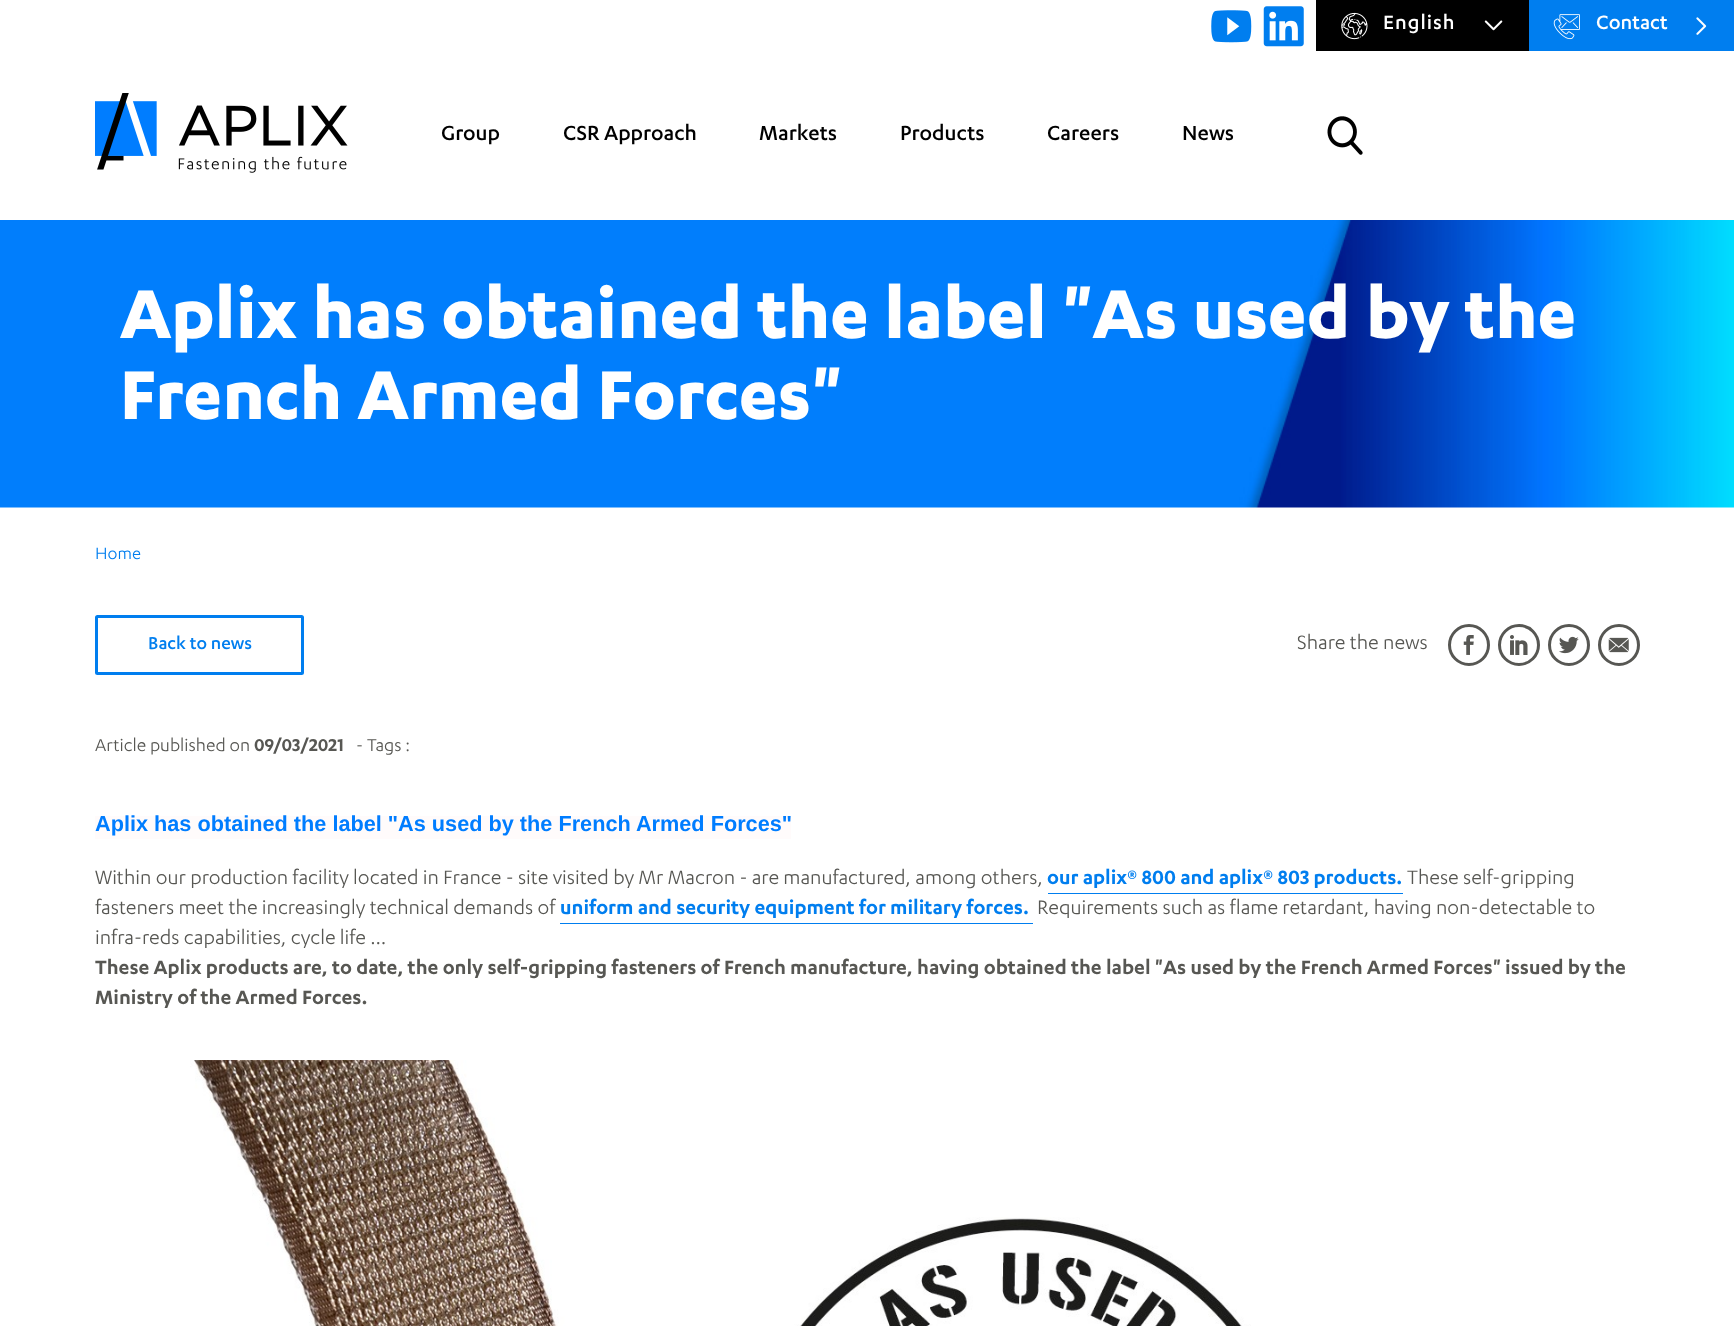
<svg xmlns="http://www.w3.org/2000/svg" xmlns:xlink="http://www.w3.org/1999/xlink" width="1734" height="1326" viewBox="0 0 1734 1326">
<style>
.cls-1{font:500 22.5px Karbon;letter-spacing:1px;fill:#ffffff}
.cls-2{font:500 22.5px Karbon;fill:#ffffff}
.cls-3{font:500 23.75px Karbon;fill:#000000}
.cls-4{font:bold 80px Karbon;fill:#ffffff}
.cls-5{font:19px Karbon;fill:#007eef}
.cls-6{font:500 20px Karbon;fill:#007eef}
.cls-7{font:22.5px Karbon;fill:#575753}
.cls-8{font:20px Karbon;fill:#575753}
.cls-9{font:600 20px Karbon;fill:#575753}
.cls-10{font:bold 21.7px Liberation Sans;fill:#007dff}
.cls-11{font:600 22.5px Karbon;fill:#007eef}
.cls-12{font:600 22.5px Karbon;fill:#575753}
</style>
<rect width="100%" height="100%" fill="#ffffff"/>
<image xlink:href="image0.png" x="1211" y="10" width="41" height="33"/>
<image xlink:href="image1.png" x="1263" y="6" width="41" height="41"/>
<rect fill="#007eef" x="1529" y="0" width="205" height="51"/>
<rect fill="#000000" x="1316" y="0" width="213" height="51"/>
<image xlink:href="image2.png" x="1341" y="12" width="27" height="28"/>
<image xlink:href="image3.png" x="1484" y="20" width="19" height="11"/>
<image xlink:href="image4.png" x="1553" y="14" width="27" height="26"/>
<image xlink:href="image5.png" x="1696" y="17" width="11" height="18"/>
<image xlink:href="image6.png" x="95" y="93" width="253" height="80"/>
<image xlink:href="image7.png" x="1327" y="116" width="36" height="39"/>
<image xlink:href="image8.png" x="0" y="220" width="1734" height="288"/>
<rect fill="none" stroke="#007eef" stroke-width="3" x="96.5" y="616.5" width="206" height="57" rx="1"/>
<circle fill="none" stroke="#575753" stroke-width="3" cx="1469" cy="645" r="19.5"/>
<image xlink:href="image9.png" x="1463" y="635" width="11" height="20"/>
<circle fill="none" stroke="#575753" stroke-width="3" cx="1519" cy="645" r="19.5"/>
<image xlink:href="image10.png" x="1510" y="635" width="18" height="20"/>
<circle fill="none" stroke="#575753" stroke-width="3" cx="1569" cy="645" r="19.5"/>
<image xlink:href="image11.png" x="1559" y="636" width="20" height="18"/>
<circle fill="none" stroke="#575753" stroke-width="3" cx="1619" cy="645" r="19.5"/>
<image xlink:href="image12.png" x="1608" y="637" width="21" height="16"/>
<rect fill="#fffbfb" x="95" y="816" width="696" height="23"/>
<rect fill="#007eef" x="1048" y="893" width="355" height="1"/>
<rect fill="#007eef" x="560" y="923" width="473" height="1"/>
<image xlink:href="image13.png" x="190" y="1060" width="1061" height="266"/>
<text class="cls-1" x="1383" y="29">English</text>
<text class="cls-2" x="1596" y="29">Contact</text>
<text class="cls-3" x="441" y="140">Group</text>
<text class="cls-3" x="563" y="140">CSR Approach</text>
<text class="cls-3" x="759" y="140">Markets</text>
<text class="cls-3" x="900" y="140">Products</text>
<text class="cls-3" x="1047" y="140">Careers</text>
<text class="cls-3" x="1182" y="140">News</text>
<text class="cls-4"><tspan x="120" y="338">Aplix has obtained the label "As used by the</tspan><tspan x="120" y="419">French Armed Forces"</tspan></text>
<text class="cls-5" x="95" y="559">Home</text>
<text class="cls-6" x="148" y="649">Back to news</text>
<text class="cls-7" x="1297" y="649">Share the news</text>
<text class="cls-8" x="95" y="751">Article published on</text>
<text class="cls-9" x="254" y="751">09/03/2021</text>
<text class="cls-8" x="356" y="751">- Tags :</text>
<text class="cls-10" x="95" y="831">Aplix has obtained the label "As used by the French Armed Forces"</text>
<text class="cls-7" x="95" y="884">Within our production facility located in France - site visited by Mr Macron - are manufactured, among others,</text>
<text class="cls-11" x="1047" y="884">our aplix® 800 and aplix® 803 products.</text>
<text class="cls-7" x="1407" y="884">These self-gripping</text>
<text class="cls-7" x="95" y="914">fasteners meet the increasingly technical demands of</text>
<text class="cls-11" x="560" y="914">uniform and security equipment for military forces.</text>
<text class="cls-7" x="1037" y="914">Requirements such as flame retardant, having non-detectable to</text>
<text class="cls-7" x="95" y="944">infra-reds capabilities, cycle life …</text>
<text class="cls-12"><tspan x="95" y="974">These Aplix products are, to date, the only self-gripping fasteners of French manufacture, having obtained the label "As used by the French Armed Forces" issued by the</tspan><tspan x="95" y="1004">Ministry of the Armed Forces.</tspan></text>
</svg>
